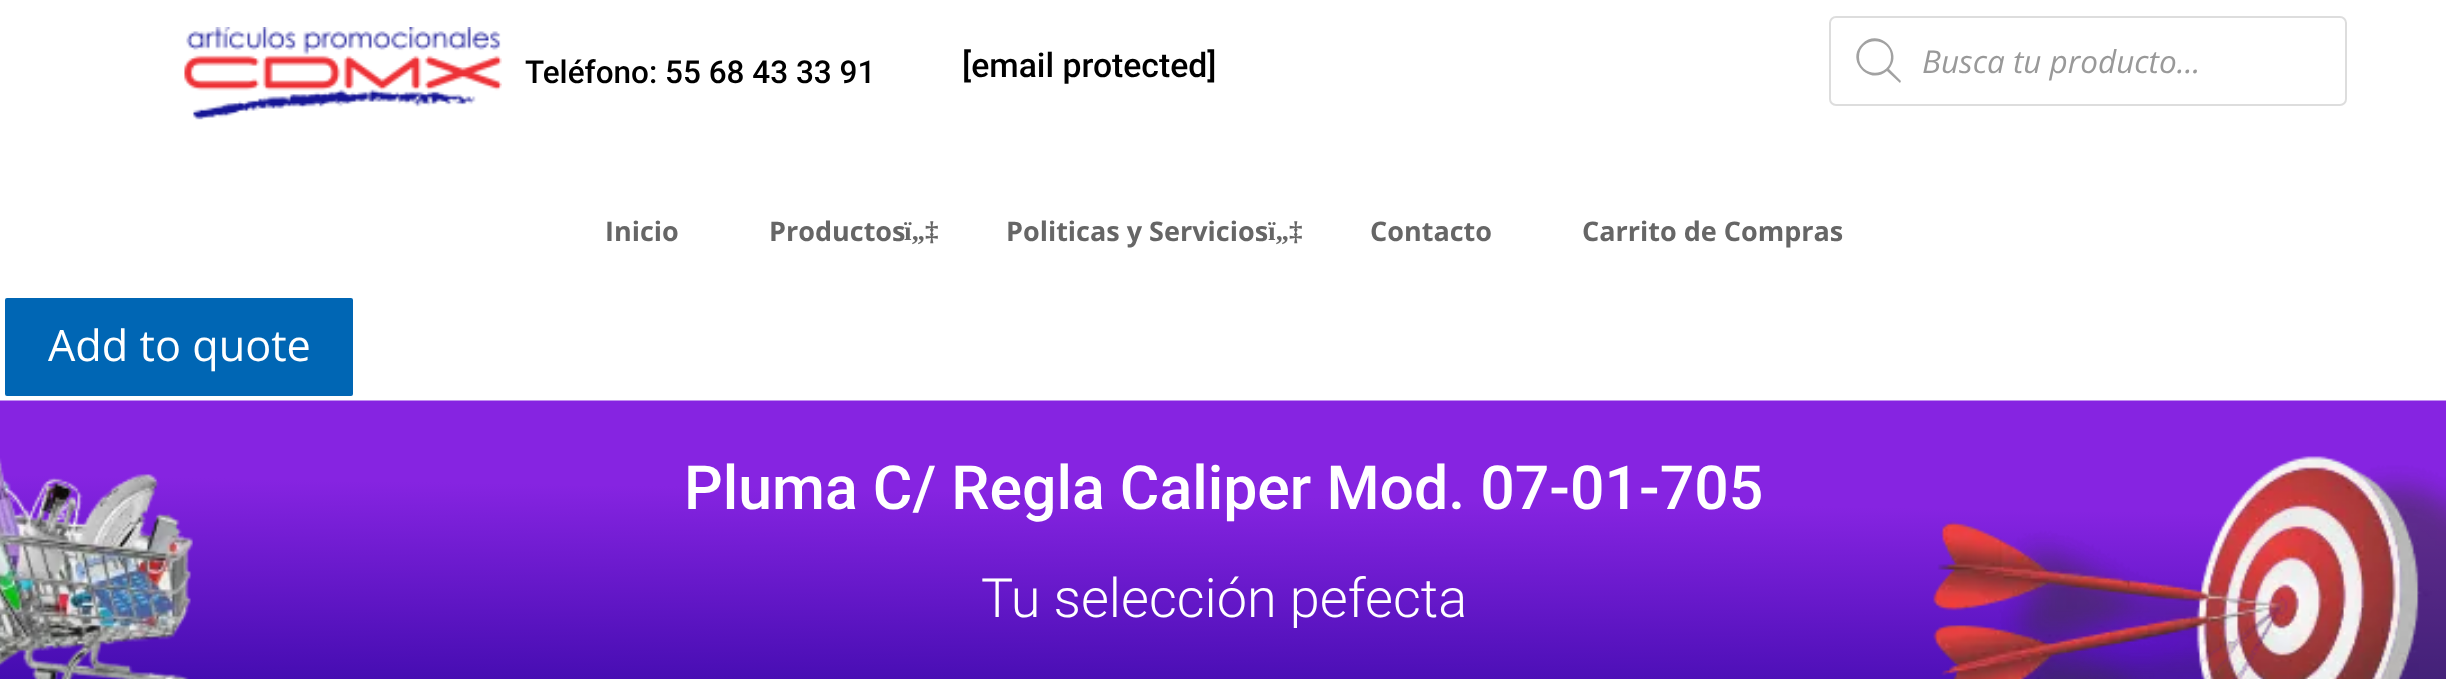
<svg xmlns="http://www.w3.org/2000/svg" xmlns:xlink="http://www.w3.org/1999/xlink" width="2446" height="679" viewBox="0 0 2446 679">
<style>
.cls-1{font:500 31.5px Roboto;fill:#000000}
.cls-2{font:500 33.75px Roboto;fill:#000000}
.cls-3{font:italic 31.5px Open Sans;fill:#999999}
.cls-4{font:bold 27px Open Sans;fill:#666666}
.cls-5{font:bold 27px Liberation Serif;fill:#666666}
.cls-6{font:43.25px Open Sans;fill:#ffffff}
.cls-7{font:500 60.75px Roboto;fill:#ffffff}
.cls-8{font:300 54px Roboto;fill:#ffffff}
</style>
<rect width="100%" height="100%" fill="#ffffff"/>
<image xlink:href="image0.png" x="184" y="27" width="318" height="93"/>
<rect fill="none" stroke="#dddddd" stroke-width="2" x="1830" y="17" width="516" height="88" rx="6"/>
<path fill="#a2a2a2" d="M1901 81L1889 69C1904 52 1879 27 1862 44C1845 61 1870 86 1887 71L1900 83ZM1859 57C1859 36 1891 36 1891 57C1891 78 1859 78 1859 57Z"/>
<rect fill="#0066b4" stroke="#ffffff" stroke-width="5" x="2.5" y="295.5" width="353" height="103" rx="4.5"/>
<image xlink:href="image1.png" x="0" y="400" width="2446" height="279"/>
<text class="cls-1" x="525" y="83">Teléfono: 55 68 43 33 91</text>
<text class="cls-2" x="962" y="77">[email protected]</text>
<text class="cls-3" x="1922" y="73">Busca tu producto...</text>
<text class="cls-4" x="605" y="241">Inicio</text>
<text class="cls-4" x="769" y="241">Productos</text>
<text class="cls-5" x="904" y="240">ï„‡</text>
<text class="cls-4" x="1006" y="241">Politicas y Servicios</text>
<text class="cls-5" x="1268" y="240">ï„‡</text>
<text class="cls-4" x="1370" y="241">Contacto</text>
<text class="cls-4" x="1582" y="241">Carrito de Compras</text>
<text class="cls-6" x="48" y="361">Add to quote</text>
<text class="cls-7" x="684" y="509">Pluma C/ Regla Caliper Mod. 07-01-705</text>
<text class="cls-8" x="981" y="617">Tu selección pefecta</text>
</svg>
